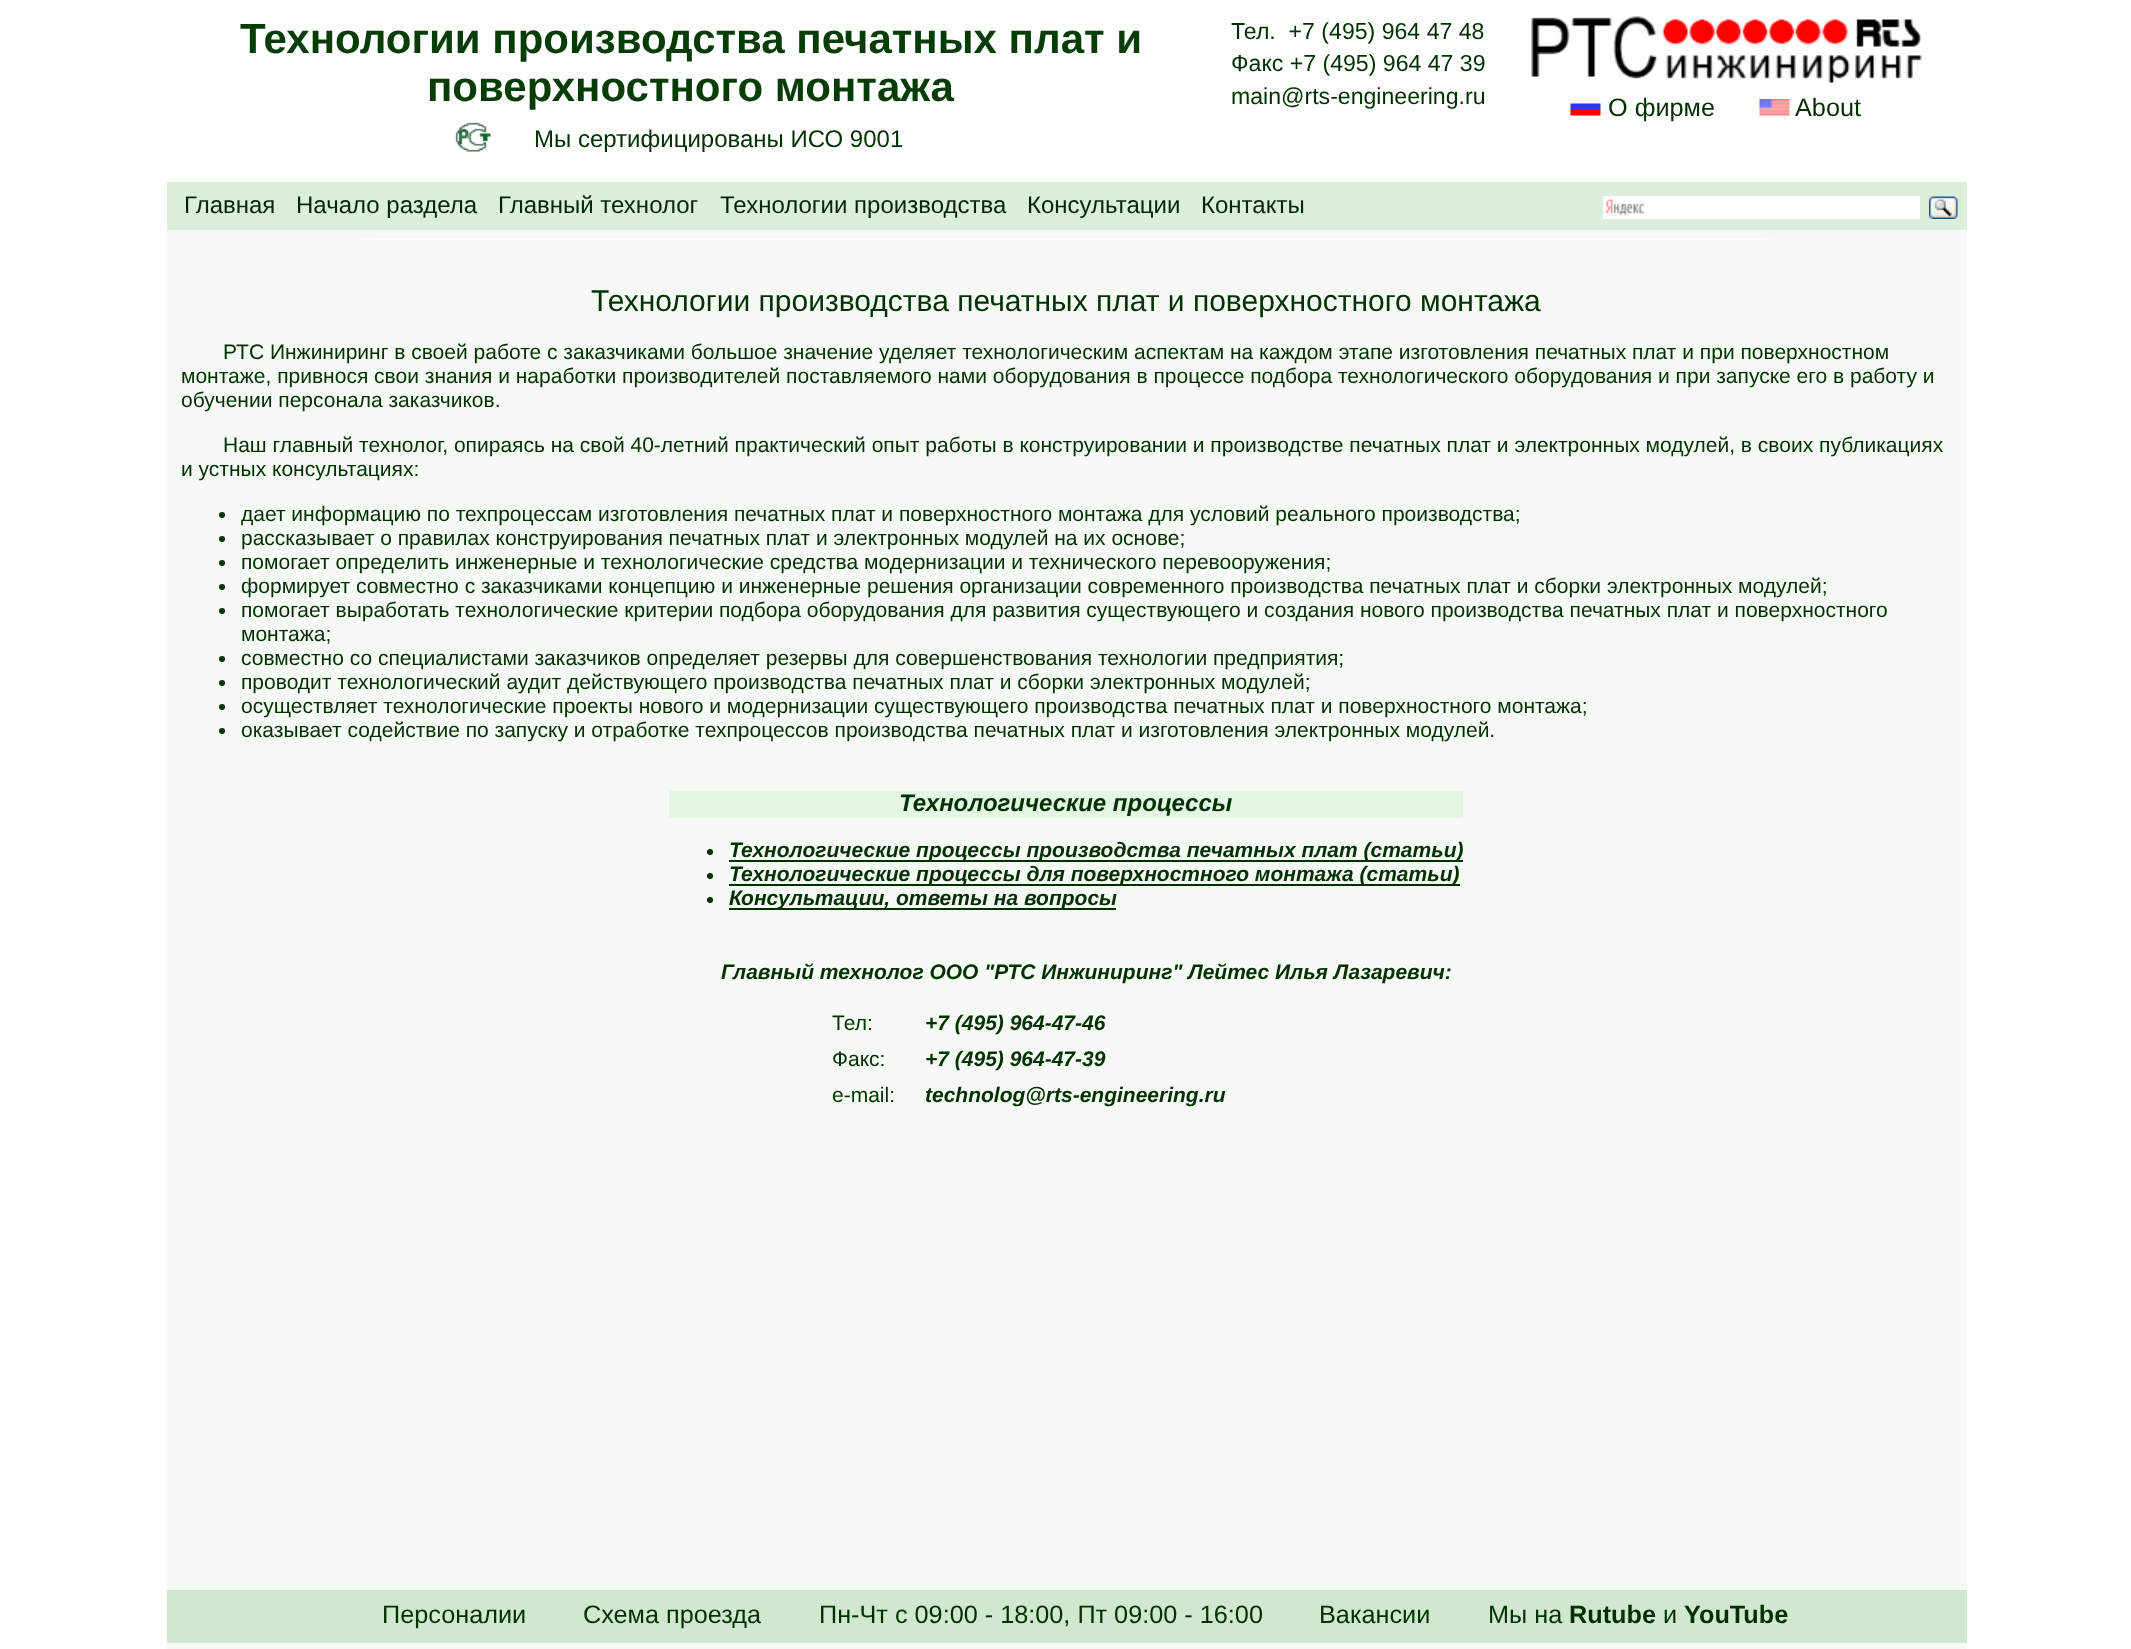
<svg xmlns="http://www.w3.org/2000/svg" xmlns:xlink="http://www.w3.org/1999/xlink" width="2131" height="1649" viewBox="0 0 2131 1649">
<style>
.cls-1{font:bold 42px Liberation Sans;fill:#063c06}
.cls-2{font:24px Liberation Sans;fill:#002f00}
.cls-3{font:23.1px Liberation Sans;fill:#002f00}
.cls-4{font:25.25px Liberation Sans;fill:#002f00}
.cls-5{font:24px Liberation Sans;fill:#052605}
.cls-6{font:30px Liberation Sans;fill:#002f00}
.cls-7{font:21px Liberation Sans;fill:#002f00}
.cls-8{font:italic bold 24px Liberation Sans;fill:#002f00}
.cls-9{font:italic bold 21px Liberation Sans;fill:#002f00}
.cls-10{font:bold 25.25px Liberation Sans;fill:#002f00}
</style>
<rect width="100%" height="100%" fill="#ffffff"/>
<rect fill="#f5faf5" x="167" y="230" width="1800" height="1419"/>
<image xlink:href="image0.png" x="455" y="122" width="36" height="30"/>
<image xlink:href="image1.png" x="1531" y="16" width="391" height="67"/>
<image xlink:href="image2.png" x="1570" y="99" width="31" height="17"/>
<image xlink:href="image3.png" x="1759" y="99" width="31" height="17"/>
<rect fill="#dceedc" x="167" y="182" width="1800" height="48"/>
<rect fill="#ffffff" x="1603" y="196" width="317" height="23"/>
<image xlink:href="image4.png" x="1605" y="199" width="39" height="17"/>
<image xlink:href="image5.png" x="1929" y="196" width="29" height="23"/>
<image xlink:href="image6.png" x="359" y="238" width="1413" height="2"/>
<circle fill="#002f00" cx="222" cy="515" r="3"/>
<circle fill="#002f00" cx="222" cy="539" r="3"/>
<circle fill="#002f00" cx="222" cy="563" r="3"/>
<circle fill="#002f00" cx="222" cy="587" r="3"/>
<circle fill="#002f00" cx="222" cy="611" r="3"/>
<circle fill="#002f00" cx="222" cy="659" r="3"/>
<circle fill="#002f00" cx="222" cy="683" r="3"/>
<circle fill="#002f00" cx="222" cy="707" r="3"/>
<circle fill="#002f00" cx="222" cy="731" r="3"/>
<rect fill="#e4f6e4" x="669" y="791" width="794" height="27"/>
<circle fill="#002f00" cx="710" cy="852" r="3"/>
<rect fill="#002f00" x="729" y="860" width="734" height="2"/>
<circle fill="#002f00" cx="710" cy="876" r="3"/>
<rect fill="#002f00" x="729" y="884" width="731" height="2"/>
<circle fill="#002f00" cx="710" cy="900" r="3"/>
<rect fill="#002f00" x="729" y="908" width="387" height="2"/>
<rect fill="#d0e8d0" x="167" y="1590" width="1800" height="53"/>
<text class="cls-1" x="240" y="53">Технологии производства печатных плат и</text>
<text class="cls-1" x="427" y="101">поверхностного монтажа</text>
<text class="cls-2" x="534" y="147">Мы сертифицированы ИСО 9001</text>
<text class="cls-3" xml:space="preserve"><tspan x="1231" y="39">Тел.  +7 (495) 964 47 48</tspan><tspan x="1231" y="71">Факс +7 (495) 964 47 39</tspan><tspan x="1231" y="104">main@rts-engineering.ru</tspan></text>
<text class="cls-4" x="1608" y="116">О фирме</text>
<text class="cls-4" x="1795" y="116">About</text>
<text class="cls-5" x="184" y="213">Главная</text>
<text class="cls-5" x="296" y="213">Начало раздела</text>
<text class="cls-5" x="498" y="213">Главный технолог</text>
<text class="cls-5" x="720" y="213">Технологии производства</text>
<text class="cls-5" x="1027" y="213">Консультации</text>
<text class="cls-5" x="1201" y="213">Контакты</text>
<text class="cls-6" x="591" y="311">Технологии производства печатных плат и поверхностного монтажа</text>
<text class="cls-7" x="223" y="359">РТС Инжиниринг в своей работе с заказчиками большое значение уделяет технологическим аспектам на каждом этапе изготовления печатных плат и при поверхностном</text>
<text class="cls-7"><tspan x="181" y="383">монтаже, привнося свои знания и наработки производителей поставляемого нами оборудования в процессе подбора технологического оборудования и при запуске его в работу и</tspan><tspan x="181" y="407">обучении персонала заказчиков.</tspan></text>
<text class="cls-7" x="223" y="452">Наш главный технолог, опираясь на свой 40-летний практический опыт работы в конструировании и производстве печатных плат и электронных модулей, в своих публикациях</text>
<text class="cls-7" x="181" y="476">и устных консультациях:</text>
<text class="cls-7"><tspan x="241" y="521">дает информацию по техпроцессам изготовления печатных плат и поверхностного монтажа для условий реального производства;</tspan><tspan x="241" y="545">рассказывает о правилах конструирования печатных плат и электронных модулей на их основе;</tspan><tspan x="241" y="569">помогает определить инженерные и технологические средства модернизации и технического перевооружения;</tspan><tspan x="241" y="593">формирует совместно с заказчиками концепцию и инженерные решения организации современного производства печатных плат и сборки электронных модулей;</tspan><tspan x="241" y="617">помогает выработать технологические критерии подбора оборудования для развития существующего и создания нового производства печатных плат и поверхностного</tspan><tspan x="241" y="641">монтажа;</tspan><tspan x="241" y="665">совместно со специалистами заказчиков определяет резервы для совершенствования технологии предприятия;</tspan><tspan x="241" y="689">проводит технологический аудит действующего производства печатных плат и сборки электронных модулей;</tspan><tspan x="241" y="713">осуществляет технологические проекты нового и модернизации существующего производства печатных плат и поверхностного монтажа;</tspan><tspan x="241" y="737">оказывает содействие по запуску и отработке техпроцессов производства печатных плат и изготовления электронных модулей.</tspan></text>
<text class="cls-8" x="899" y="811">Технологические процессы</text>
<text class="cls-9"><tspan x="729" y="857">Технологические процессы производства печатных плат (статьи)</tspan><tspan x="729" y="881">Технологические процессы для поверхностного монтажа (статьи)</tspan><tspan x="729" y="905">Консультации, ответы на вопросы</tspan></text>
<text class="cls-9" x="721" y="979">Главный технолог ООО "РТС Инжиниринг" Лейтес Илья Лазаревич:</text>
<text class="cls-7" x="832" y="1030">Тел:</text>
<text class="cls-9" x="925" y="1030">+7 (495) 964-47-46</text>
<text class="cls-7" x="832" y="1066">Факс:</text>
<text class="cls-9" x="925" y="1066">+7 (495) 964-47-39</text>
<text class="cls-7" x="832" y="1102">e-mail:</text>
<text class="cls-9" x="925" y="1102">technolog@rts-engineering.ru</text>
<text class="cls-4" x="382" y="1623">Персоналии</text>
<text class="cls-4" x="583" y="1623">Схема проезда</text>
<text class="cls-4" x="819" y="1623">Пн-Чт с 09:00 - 18:00, Пт 09:00 - 16:00</text>
<text class="cls-4" x="1319" y="1623">Вакансии</text>
<text class="cls-4" x="1488" y="1623">Мы на</text>
<text class="cls-10" x="1569" y="1623">Rutube</text>
<text class="cls-4" x="1663" y="1623">и</text>
<text class="cls-10" x="1684" y="1623">YouTube</text>
</svg>
